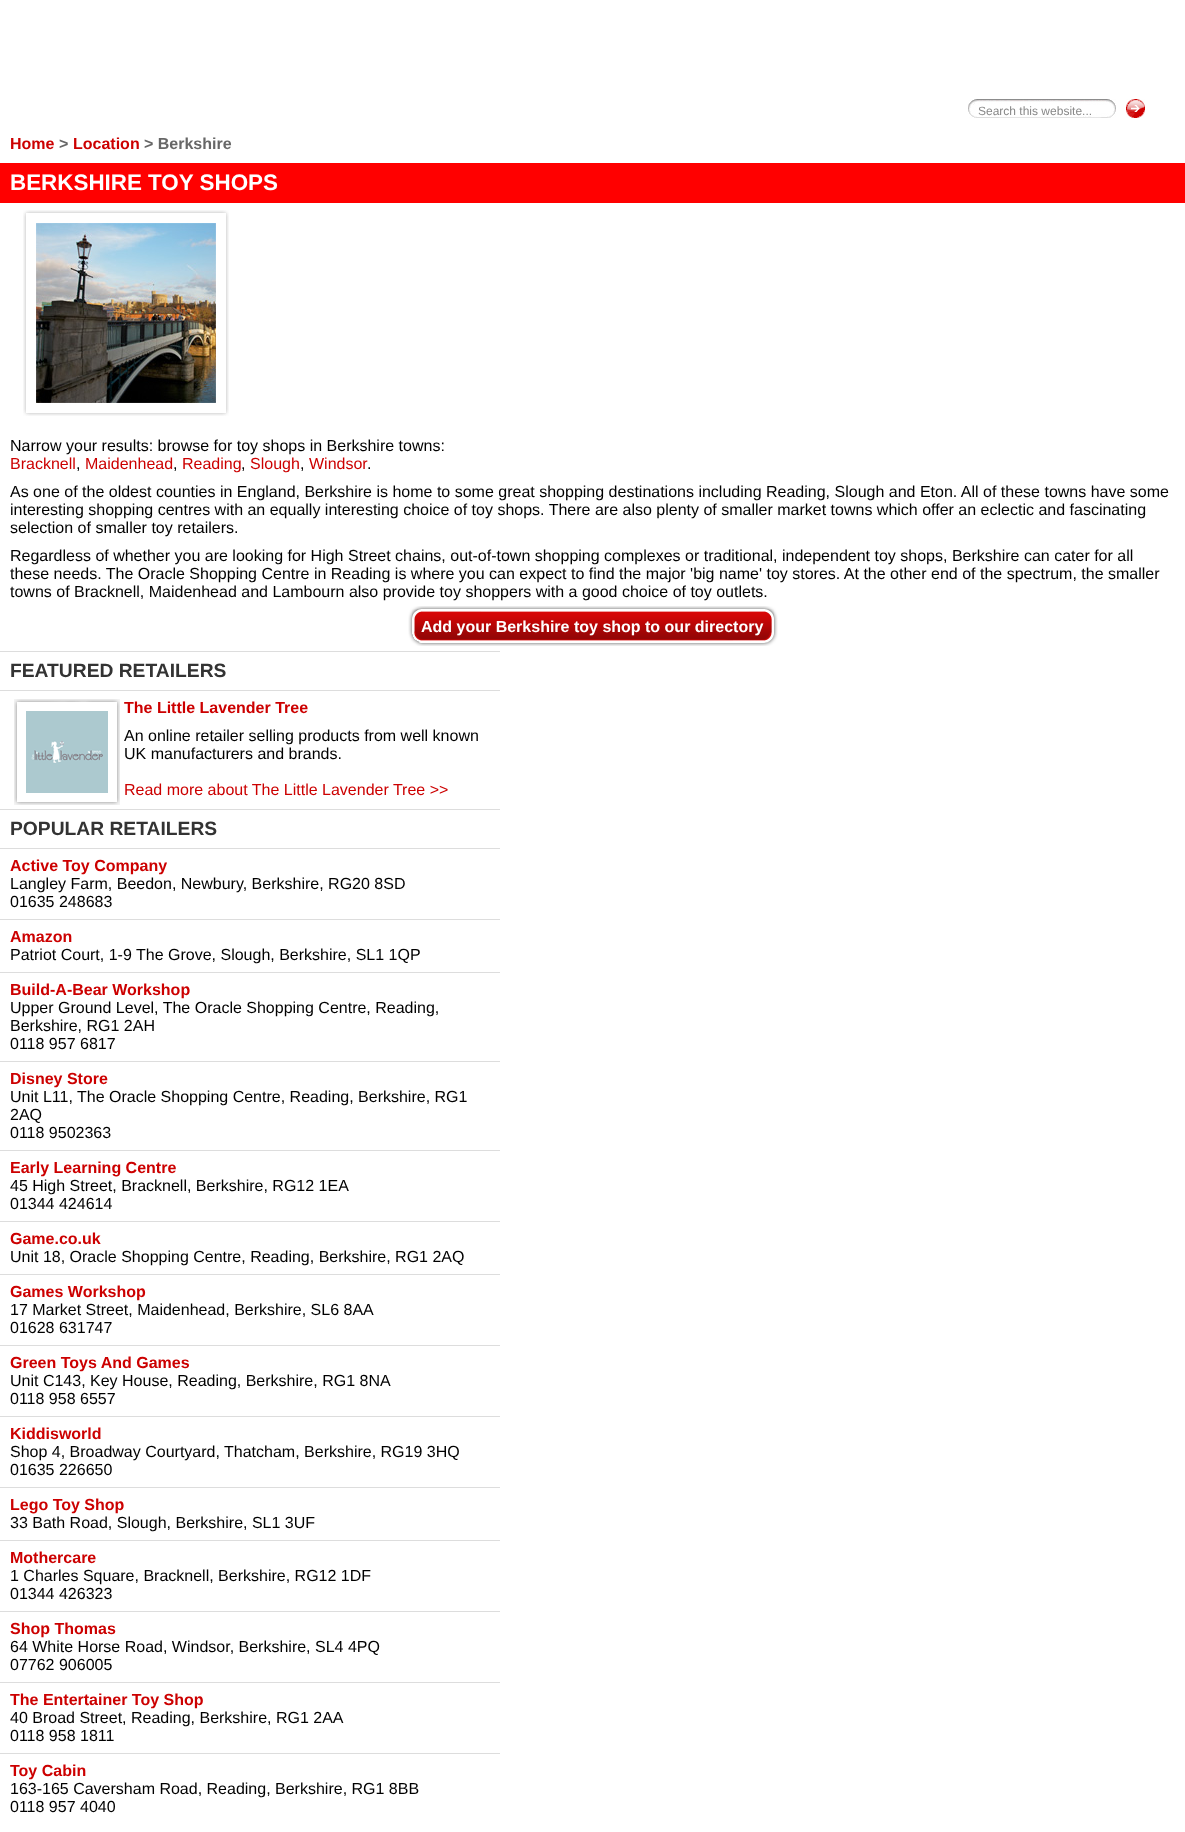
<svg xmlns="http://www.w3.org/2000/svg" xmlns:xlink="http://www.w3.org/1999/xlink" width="1185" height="1832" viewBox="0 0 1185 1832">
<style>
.cls-1{font:12px Liberation Sans;fill:#888888}
.cls-2{font:bold 16px Liberation Sans;fill:#cc0000}
.cls-3{font:bold 16px Liberation Sans;fill:#676767}
.cls-4{font:bold 22.4px Liberation Sans;fill:#ffffff}
.cls-5{font:16px Liberation Sans;fill:#000000}
.cls-6{font:16px Liberation Sans;fill:#cc0000}
.cls-7{font:bold 16px Liberation Sans;fill:#ffffff}
.cls-8{font:bold 19.25px Liberation Sans;fill:#333333}
</style>
<rect width="100%" height="100%" fill="#ffffff"/>
<image xlink:href="image0.png" x="968" y="99" width="148" height="19"/>
<image xlink:href="image1.png" x="1126" y="99" width="19" height="19"/>
<rect fill="#ff0000" x="0" y="163" width="1185" height="40"/>
<image xlink:href="image2.png" x="23" y="210" width="206" height="206"/>
<image xlink:href="image3.png" x="408" y="606" width="370" height="40"/>
<rect fill="#dddddd" x="0" y="651" width="500" height="1"/>
<rect fill="#dddddd" x="0" y="690" width="500" height="1"/>
<image xlink:href="image4.png" x="14" y="699" width="106" height="106"/>
<rect fill="#dddddd" x="0" y="809" width="500" height="1"/>
<rect fill="#dddddd" x="0" y="848" width="500" height="1"/>
<rect fill="#dddddd" x="0" y="919" width="500" height="1"/>
<rect fill="#dddddd" x="0" y="972" width="500" height="1"/>
<rect fill="#dddddd" x="0" y="1061" width="500" height="1"/>
<rect fill="#dddddd" x="0" y="1150" width="500" height="1"/>
<rect fill="#dddddd" x="0" y="1221" width="500" height="1"/>
<rect fill="#dddddd" x="0" y="1274" width="500" height="1"/>
<rect fill="#dddddd" x="0" y="1345" width="500" height="1"/>
<rect fill="#dddddd" x="0" y="1416" width="500" height="1"/>
<rect fill="#dddddd" x="0" y="1487" width="500" height="1"/>
<rect fill="#dddddd" x="0" y="1540" width="500" height="1"/>
<rect fill="#dddddd" x="0" y="1611" width="500" height="1"/>
<rect fill="#dddddd" x="0" y="1682" width="500" height="1"/>
<rect fill="#dddddd" x="0" y="1753" width="500" height="1"/>
<text class="cls-1" x="978" y="115">Search this website...</text>
<text class="cls-2" x="10" y="149">Home</text>
<text class="cls-3" x="59" y="149">&gt;</text>
<text class="cls-2" x="73" y="149">Location</text>
<text class="cls-3" x="144" y="149">&gt; Berkshire</text>
<text class="cls-4" x="10" y="190">BERKSHIRE TOY SHOPS</text>
<text class="cls-5" x="10" y="451">Narrow your results: browse for toy shops in Berkshire towns:</text>
<text class="cls-6" x="10" y="469">Bracknell</text>
<text class="cls-5" x="76" y="469">,</text>
<text class="cls-6" x="85" y="469">Maidenhead</text>
<text class="cls-5" x="173" y="469">,</text>
<text class="cls-6" x="182" y="469">Reading</text>
<text class="cls-5" x="241" y="469">,</text>
<text class="cls-6" x="250" y="469">Slough</text>
<text class="cls-5" x="300" y="469">,</text>
<text class="cls-6" x="309" y="469">Windsor</text>
<text class="cls-5" x="367" y="469">.</text>
<text class="cls-5"><tspan x="10" y="497">As one of the oldest counties in England, Berkshire is home to some great shopping destinations including Reading, Slough and Eton. All of these towns have some</tspan><tspan x="10" y="515">interesting shopping centres with an equally interesting choice of toy shops. There are also plenty of smaller market towns which offer an eclectic and fascinating</tspan><tspan x="10" y="533">selection of smaller toy retailers.</tspan><tspan x="10" y="561">Regardless of whether you are looking for High Street chains, out-of-town shopping complexes or traditional, independent toy shops, Berkshire can cater for all</tspan><tspan x="10" y="579">these needs. The Oracle Shopping Centre in Reading is where you can expect to find the major 'big name' toy stores. At the other end of the spectrum, the smaller</tspan><tspan x="10" y="597">towns of Bracknell, Maidenhead and Lambourn also provide toy shoppers with a good choice of toy outlets.</tspan></text>
<text class="cls-7" x="421" y="632">Add your Berkshire toy shop to our directory</text>
<text class="cls-8" x="10" y="677">FEATURED RETAILERS</text>
<text class="cls-2" x="124" y="713">The Little Lavender Tree</text>
<text class="cls-5"><tspan x="124" y="741">An online retailer selling products from well known</tspan><tspan x="124" y="759">UK manufacturers and brands.</tspan></text>
<text class="cls-6" x="124" y="795">Read more about The Little Lavender Tree &gt;&gt;</text>
<text class="cls-8" x="10" y="835">POPULAR RETAILERS</text>
<text class="cls-2" x="10" y="871">Active Toy Company</text>
<text class="cls-5"><tspan x="10" y="889">Langley Farm, Beedon, Newbury, Berkshire, RG20 8SD</tspan><tspan x="10" y="907">01635 248683</tspan></text>
<text class="cls-2" x="10" y="942">Amazon</text>
<text class="cls-5" x="10" y="960">Patriot Court, 1-9 The Grove, Slough, Berkshire, SL1 1QP</text>
<text class="cls-2" x="10" y="995">Build-A-Bear Workshop</text>
<text class="cls-5"><tspan x="10" y="1013">Upper Ground Level, The Oracle Shopping Centre, Reading,</tspan><tspan x="10" y="1031">Berkshire, RG1 2AH</tspan><tspan x="10" y="1049">0118 957 6817</tspan></text>
<text class="cls-2" x="10" y="1084">Disney Store</text>
<text class="cls-5"><tspan x="10" y="1102">Unit L11, The Oracle Shopping Centre, Reading, Berkshire, RG1</tspan><tspan x="10" y="1120">2AQ</tspan><tspan x="10" y="1138">0118 9502363</tspan></text>
<text class="cls-2" x="10" y="1173">Early Learning Centre</text>
<text class="cls-5"><tspan x="10" y="1191">45 High Street, Bracknell, Berkshire, RG12 1EA</tspan><tspan x="10" y="1209">01344 424614</tspan></text>
<text class="cls-2" x="10" y="1244">Game.co.uk</text>
<text class="cls-5" x="10" y="1262">Unit 18, Oracle Shopping Centre, Reading, Berkshire, RG1 2AQ</text>
<text class="cls-2" x="10" y="1297">Games Workshop</text>
<text class="cls-5"><tspan x="10" y="1315">17 Market Street, Maidenhead, Berkshire, SL6 8AA</tspan><tspan x="10" y="1333">01628 631747</tspan></text>
<text class="cls-2" x="10" y="1368">Green Toys And Games</text>
<text class="cls-5"><tspan x="10" y="1386">Unit C143, Key House, Reading, Berkshire, RG1 8NA</tspan><tspan x="10" y="1404">0118 958 6557</tspan></text>
<text class="cls-2" x="10" y="1439">Kiddisworld</text>
<text class="cls-5"><tspan x="10" y="1457">Shop 4, Broadway Courtyard, Thatcham, Berkshire, RG19 3HQ</tspan><tspan x="10" y="1475">01635 226650</tspan></text>
<text class="cls-2" x="10" y="1510">Lego Toy Shop</text>
<text class="cls-5" x="10" y="1528">33 Bath Road, Slough, Berkshire, SL1 3UF</text>
<text class="cls-2" x="10" y="1563">Mothercare</text>
<text class="cls-5"><tspan x="10" y="1581">1 Charles Square, Bracknell, Berkshire, RG12 1DF</tspan><tspan x="10" y="1599">01344 426323</tspan></text>
<text class="cls-2" x="10" y="1634">Shop Thomas</text>
<text class="cls-5"><tspan x="10" y="1652">64 White Horse Road, Windsor, Berkshire, SL4 4PQ</tspan><tspan x="10" y="1670">07762 906005</tspan></text>
<text class="cls-2" x="10" y="1705">The Entertainer Toy Shop</text>
<text class="cls-5"><tspan x="10" y="1723">40 Broad Street, Reading, Berkshire, RG1 2AA</tspan><tspan x="10" y="1741">0118 958 1811</tspan></text>
<text class="cls-2" x="10" y="1776">Toy Cabin</text>
<text class="cls-5"><tspan x="10" y="1794">163-165 Caversham Road, Reading, Berkshire, RG1 8BB</tspan><tspan x="10" y="1812">0118 957 4040</tspan></text>
</svg>
